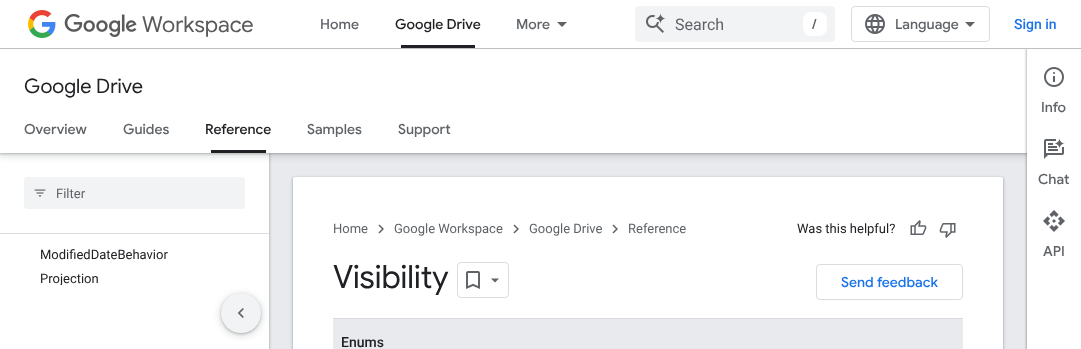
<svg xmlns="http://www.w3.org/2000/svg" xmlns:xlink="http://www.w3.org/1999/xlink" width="1081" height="349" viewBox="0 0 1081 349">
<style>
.cls-1{font:22px Google Sans;fill:#595959}
.cls-2{font:500 14px Google Sans;fill:#5f6368}
.cls-3{font:500 14px Google Sans;fill:#202124}
.cls-4{font:16px Roboto;fill:#5f6368}
.cls-5{font:500 14px Roboto;fill:#1a73e8}
.cls-6{font:20px Google Sans;fill:#202124}
.cls-7{font:13px Roboto;fill:#5f6368}
.cls-8{font:13px Roboto;fill:#202124}
.cls-9{font:32px Google Sans;fill:#202124}
.cls-10{font:500 14px Google Sans;fill:#1a73e8}
.cls-11{font:500 14px Roboto;fill:#202124}
</style>
<rect width="100%" height="100%" fill="#e8eaed"/>
<rect fill="#3c4043" fill-opacity="0.15" filter="blur(1.5px)" x="-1" y="0" width="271" height="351"/>
<rect fill="#3c4043" fill-opacity="0.3" filter="blur(1px)" x="0" y="1" width="269" height="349"/>
<rect fill="#ffffff" x="0" y="234" width="269" height="51"/>
<rect fill="#ffffff" x="0" y="153" width="269" height="80"/>
<rect fill="#3c4043" fill-opacity="0.15" filter="blur(3px)" x="-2" y="49" width="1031" height="108"/>
<rect fill="#3c4043" fill-opacity="0.3" filter="blur(1px)" x="0" y="50" width="1027" height="104"/>
<rect fill="#ffffff" x="0" y="49" width="1027" height="104"/>
<rect fill="#000000" fill-opacity="0.15" filter="blur(1.5px)" x="1026" y="48" width="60" height="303"/>
<rect fill="#000000" fill-opacity="0.3" filter="blur(1px)" x="1027" y="49" width="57" height="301"/>
<rect fill="#ffffff" x="0" y="0" width="1081" height="48"/>
<rect fill="#bdc1c6" x="0" y="48" width="1081" height="1"/>
<image xlink:href="image0.png" x="28" y="10" width="28" height="28"/>
<image xlink:href="image1.png" x="64" y="13" width="73" height="24"/>
<rect fill="#202124" x="401" y="45" width="74" height="3"/>
<path fill="#5f6368" d="M557 22H567L562 27Z"/>
<rect fill="#f1f3f4" x="635" y="6" width="200" height="36" rx="4"/>
<image xlink:href="image2.png" x="646" y="13" width="20" height="20"/>
<rect fill="#ffffff" x="803" y="12" width="24" height="24" rx="8"/>
<rect fill="none" stroke="#dadce0" x="851.5" y="6.5" width="138" height="35" rx="3.5"/>
<image xlink:href="image3.png" x="865" y="14" width="20" height="20"/>
<path fill="#5f6368" d="M970 27L965 22H975Z"/>
<rect fill="#202124" x="211" y="150" width="55" height="3"/>
<rect fill="#dadce0" x="0" y="233" width="269" height="1"/>
<rect fill="#f1f3f4" x="24" y="177" width="221" height="32" rx="4"/>
<image xlink:href="image4.png" x="34" y="189" width="12" height="8"/>
<rect fill="#ffffff" x="1027" y="49" width="54" height="300"/>
<image xlink:href="image5.png" x="1044" y="67" width="20" height="20"/>
<image xlink:href="image6.png" x="1044" y="138" width="21" height="21"/>
<image xlink:href="image7.png" x="1043" y="210" width="22" height="22"/>
<rect fill="#3c4043" fill-opacity="0.15" filter="blur(1.5px)" x="292" y="177" width="712" height="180" rx="3"/>
<rect fill="#3c4043" fill-opacity="0.3" filter="blur(1px)" x="293" y="178" width="710" height="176" rx="2"/>
<rect fill="#ffffff" x="293" y="177" width="710" height="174" rx="2"/>
<image xlink:href="image8.png" x="378" y="224" width="6" height="10"/>
<image xlink:href="image8.png" x="513" y="224" width="6" height="10"/>
<image xlink:href="image8.png" x="612" y="224" width="6" height="10"/>
<image xlink:href="image9.png" x="910" y="220" width="17" height="15"/>
<image xlink:href="image10.png" x="939" y="223" width="17" height="15"/>
<rect fill="none" stroke="#dadce0" x="457.5" y="262.5" width="51" height="35" rx="3.5"/>
<image xlink:href="image11.png" x="466" y="271" width="14" height="18"/>
<path fill="#5f6368" d="M491 278.5H499L495 282.5Z"/>
<rect fill="none" stroke="#dadce0" x="816.5" y="264.5" width="146" height="35" rx="3.5"/>
<rect fill="#dadce0" x="333" y="318" width="630" height="1"/>
<rect fill="#e8eaed" x="333" y="319" width="630" height="30"/>
<text class="cls-1" x="142" y="32">Workspace</text>
<text class="cls-2" x="320" y="29">Home</text>
<text class="cls-3" x="395" y="29">Google Drive</text>
<text class="cls-2" x="516" y="29">More</text>
<text class="cls-4" x="675" y="30">Search</text>
<text class="cls-2" x="812" y="29">/</text>
<text class="cls-2" x="895" y="29">Language</text>
<text class="cls-5" x="1014" y="29">Sign in</text>
<text class="cls-6" x="24" y="93">Google Drive</text>
<text class="cls-2" x="24" y="134">Overview</text>
<text class="cls-2" x="123" y="134">Guides</text>
<text class="cls-3" x="205" y="134">Reference</text>
<text class="cls-2" x="307" y="134">Samples</text>
<text class="cls-2" x="398" y="134">Support</text>
<text class="cls-7" x="56" y="198">Filter</text>
<text class="cls-8"><tspan x="40" y="259">ModifiedDateBehavior</tspan><tspan x="40" y="283">Projection</tspan></text>
<text class="cls-2" x="1041" y="112">Info</text>
<text class="cls-2" x="1038" y="184">Chat</text>
<text class="cls-2" x="1043" y="256">API</text>
<text class="cls-7" x="333" y="233">Home</text>
<text class="cls-7" x="394" y="233">Google Workspace</text>
<text class="cls-7" x="529" y="233">Google Drive</text>
<text class="cls-7" x="628" y="233">Reference</text>
<text class="cls-8" x="797" y="233">Was this helpful?</text>
<text class="cls-9" x="333" y="288">Visibility</text>
<text class="cls-10" x="841" y="287">Send feedback</text>
<text class="cls-11" x="341" y="347">Enums</text>
<rect fill="#ffffff" x="0" y="285" width="269" height="64"/>
<rect fill="#3c4043" fill-opacity="0.3" filter="blur(1px)" x="221" y="294" width="40" height="40" rx="20"/>
<rect fill="#3c4043" fill-opacity="0.15" filter="blur(3px)" x="219" y="293" width="44" height="44" rx="22"/>
<circle fill="#f1f3f4" cx="241" cy="313" r="20"/>
<image xlink:href="image12.png" x="237" y="308" width="7" height="10"/>
</svg>
